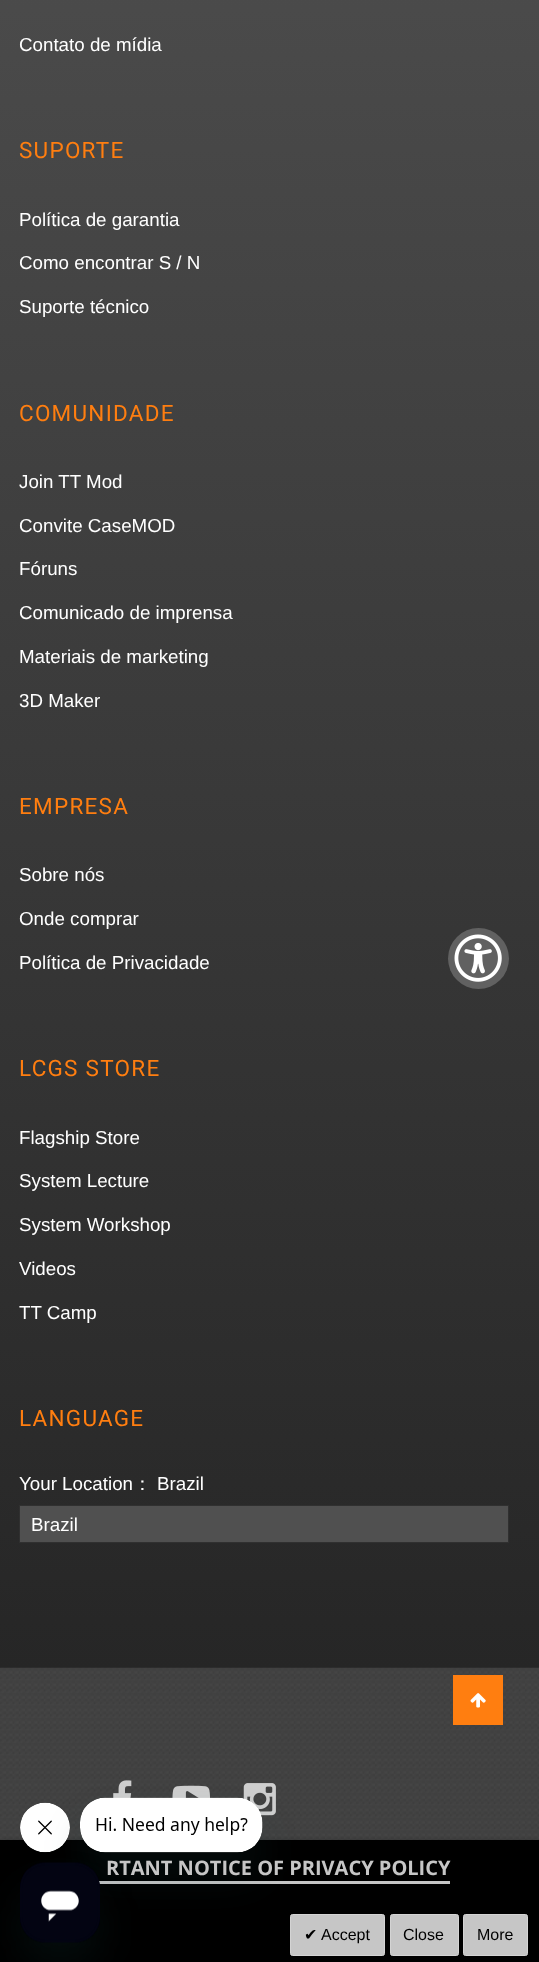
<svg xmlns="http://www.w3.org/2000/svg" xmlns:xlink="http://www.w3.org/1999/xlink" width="539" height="1962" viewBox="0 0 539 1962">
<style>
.cls-1{font:18.75px Liberation Sans;fill:#ffffff}
.cls-2{font:22.5px Roboto;letter-spacing:1.25px;fill:#ff7e10}
.cls-3{font:500 18.75px WenQuanYi Zen Hei;fill:#ffffff}
.cls-4{font:bold 20px Open Sans;fill:#c6c6c6}
.cls-5{font:16px DejaVu Sans;fill:#000000}
.cls-6{font:16px Liberation Sans;fill:#000000}
</style>
<defs>
<linearGradient id="g1" gradientUnits="userSpaceOnUse" x1="270" y1="-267" x2="270" y2="1668"><stop offset="0" stop-color="#505050"/><stop offset="1" stop-color="#262626"/></linearGradient>
</defs>
<rect width="100%" height="100%" fill="#ffffff"/>
<rect fill="url(#g1)" x="0" y="0" width="539" height="1668"/>
<rect fill="#505050" stroke="#303030" x="19.5" y="1505.5" width="489" height="37"/>
<image xlink:href="image0.png" x="0" y="1667" width="539" height="173"/>
<image xlink:href="image1.png" x="113" y="1780" width="19" height="18"/>
<image xlink:href="image2.png" x="172" y="1785" width="38" height="13"/>
<image xlink:href="image3.png" x="243" y="1783" width="33" height="33"/>
<rect fill="#ff7e10" x="453" y="1675" width="50" height="50"/>
<image xlink:href="image4.png" x="470" y="1693" width="16" height="15"/>
<rect fill="#000000" fill-opacity="0.47" filter="blur(3px)" x="0" y="1843" width="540" height="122"/>
<rect fill="#000000" x="0" y="1840" width="539" height="122"/>
<rect fill="#c6c6c6" x="99" y="1881" width="351" height="3"/>
<rect fill="#c6c6c6" stroke="#d4d4d4" x="290.5" y="1914.5" width="94" height="41" rx="2"/>
<rect fill="#c6c6c6" stroke="#d4d4d4" x="390.5" y="1914.5" width="68" height="41" rx="2"/>
<rect fill="#c6c6c6" stroke="#d4d4d4" x="463.5" y="1914.5" width="64" height="41" rx="2"/>
<circle fill="#616161" cx="478.5" cy="958.5" r="30.5"/>
<image xlink:href="image5.png" x="454" y="934" width="48" height="48"/>
<image xlink:href="image7.png" x="20" y="1802" width="50" height="51"/>
<rect fill="#17494d" fill-opacity="0.15" filter="blur(19px)" x="80" y="1823" width="183" height="55" rx="25"/>
<image xlink:href="image6.png" x="80" y="1797" width="183" height="56"/>
<rect fill="#17494d" fill-opacity="0.15" filter="blur(19px)" x="20" y="1888" width="80" height="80" rx="25"/>
<image xlink:href="image8.png" x="20" y="1862" width="80" height="81"/>
<text class="cls-1" x="19" y="51">Contato de mídia</text>
<text class="cls-2" x="19" y="158">SUPORTE</text>
<text class="cls-1" x="19" y="226">Política de garantia</text>
<text class="cls-1" x="19" y="269">Como encontrar S / N</text>
<text class="cls-1" x="19" y="313">Suporte técnico</text>
<text class="cls-2" x="19" y="421">COMUNIDADE</text>
<text class="cls-1" x="19" y="488">Join TT Mod</text>
<text class="cls-1" x="19" y="532">Convite CaseMOD</text>
<text class="cls-1" x="19" y="575">Fóruns</text>
<text class="cls-1" x="19" y="619">Comunicado de imprensa</text>
<text class="cls-1" x="19" y="663">Materiais de marketing</text>
<text class="cls-1" x="19" y="707">3D Maker</text>
<text class="cls-2" x="19" y="814">EMPRESA</text>
<text class="cls-1" x="19" y="881">Sobre nós</text>
<text class="cls-1" x="19" y="925">Onde comprar</text>
<text class="cls-1" x="19" y="969">Política de Privacidade</text>
<text class="cls-2" x="19" y="1076">LCGS STORE</text>
<text class="cls-1" x="19" y="1144">Flagship Store</text>
<text class="cls-1" x="19" y="1187">System Lecture</text>
<text class="cls-1" x="19" y="1231">System Workshop</text>
<text class="cls-1" x="19" y="1275">Videos</text>
<text class="cls-1" x="19" y="1319">TT Camp</text>
<text class="cls-2" x="19" y="1426">LANGUAGE</text>
<text class="cls-1" x="19" y="1490">Your Location</text>
<text class="cls-3" x="133" y="1490">：</text>
<text class="cls-1" x="157" y="1490">Brazil</text>
<text class="cls-1" x="31" y="1531">Brazil</text>
<text class="cls-4" x="106" y="1875">RTANT NOTICE OF PRIVACY POLICY</text>
<text class="cls-5" x="304" y="1940">✔</text>
<text class="cls-6" x="321" y="1940">Accept</text>
<text class="cls-6" x="403" y="1940">Close</text>
<text class="cls-6" x="477" y="1940">More</text>
</svg>
